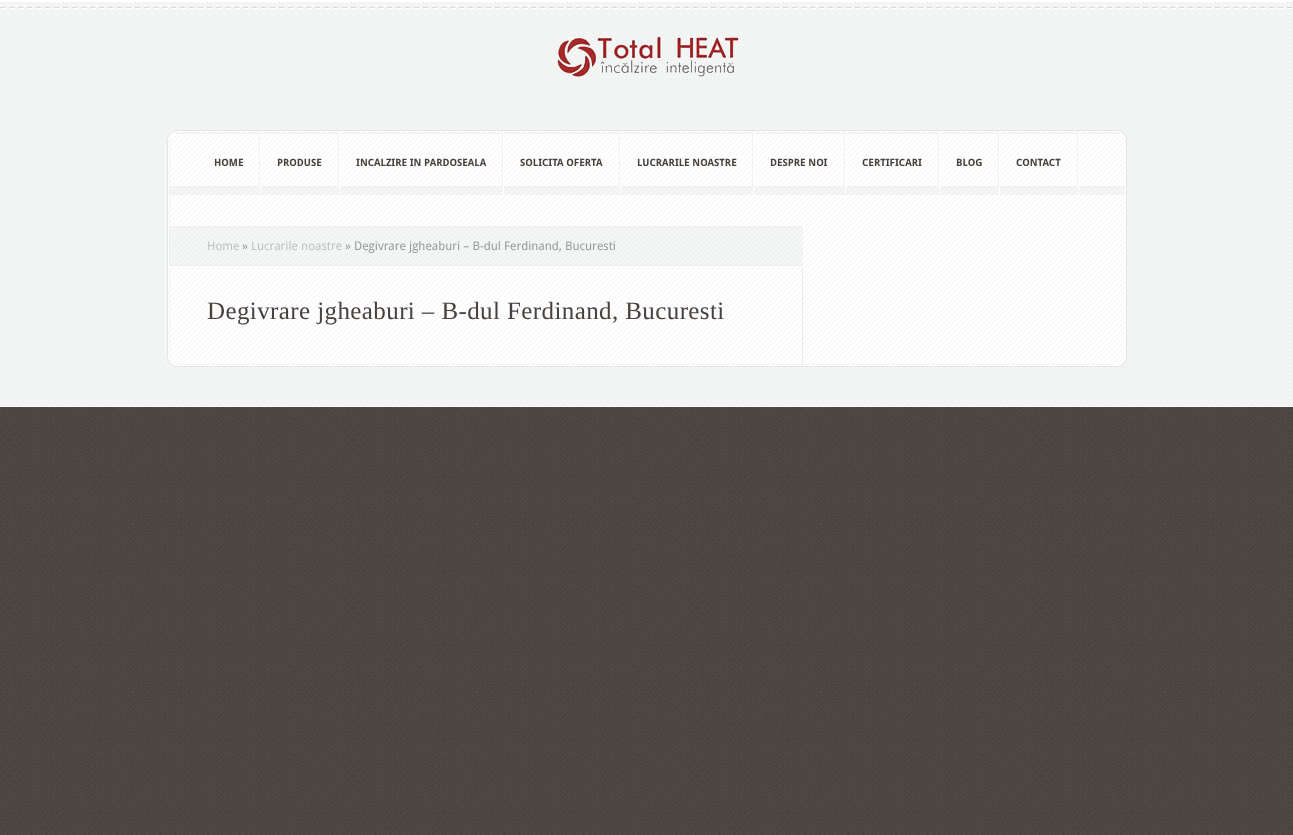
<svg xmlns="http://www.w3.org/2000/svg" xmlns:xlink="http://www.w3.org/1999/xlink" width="1293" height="835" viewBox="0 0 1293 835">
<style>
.cls-1{font:bold 10px Droid Sans;fill:#48423f}
.cls-2{font:12px Droid Sans;fill:#b9c5c5}
.cls-3{font:12px Droid Sans;fill:#929e9e}
.cls-4{font:25px Liberation Serif;letter-spacing:0.4px;fill:#48423f}
</style>
<rect width="100%" height="100%" fill="#ffffff"/>
<image xlink:href="image0.png" x="0" y="407" width="1293" height="428"/>
<rect fill="#fafcfc" x="0" y="2" width="1293" height="404"/>
<image xlink:href="image1.png" x="0" y="2" width="1293" height="404"/>
<image xlink:href="image2.png" x="0" y="7" width="1293" height="2"/>
<image xlink:href="image3.png" x="557" y="36" width="182" height="42"/>
<rect fill="none" stroke="#e2e5e5" x="167.5" y="130.5" width="959" height="236" rx="9.5"/>
<image xlink:href="image4.png" x="168" y="131" width="958" height="235"/>
<rect fill="none" stroke="#ffffff" x="168.5" y="131.5" width="957" height="234" rx="9.5"/>
<image xlink:href="image5.png" x="169" y="140" width="1" height="217"/>
<rect fill="#000000" fill-opacity="0.03" x="174" y="132" width="946" height="2"/>
<image xlink:href="image6.png" x="178" y="364" width="938" height="1"/>
<image xlink:href="image7.png" x="169" y="185" width="956" height="10"/>
<image xlink:href="image8.png" x="259" y="131" width="2" height="64"/>
<image xlink:href="image8.png" x="338" y="131" width="2" height="64"/>
<image xlink:href="image8.png" x="502" y="131" width="2" height="64"/>
<image xlink:href="image8.png" x="619" y="131" width="2" height="64"/>
<image xlink:href="image8.png" x="752" y="131" width="2" height="64"/>
<image xlink:href="image8.png" x="844" y="131" width="2" height="64"/>
<image xlink:href="image8.png" x="938" y="131" width="2" height="64"/>
<image xlink:href="image8.png" x="998" y="131" width="2" height="64"/>
<image xlink:href="image8.png" x="1077" y="131" width="2" height="64"/>
<image xlink:href="image9.png" x="169" y="225" width="634" height="42"/>
<rect fill="#e9ecec" x="802" y="267" width="1" height="98"/>
<text class="cls-1" x="214" y="166">HOME</text>
<text class="cls-1" x="277" y="166">PRODUSE</text>
<text class="cls-1" x="356" y="166">INCALZIRE IN PARDOSEALA</text>
<text class="cls-1" x="520" y="166">SOLICITA OFERTA</text>
<text class="cls-1" x="637" y="166">LUCRARILE NOASTRE</text>
<text class="cls-1" x="770" y="166">DESPRE NOI</text>
<text class="cls-1" x="862" y="166">CERTIFICARI</text>
<text class="cls-1" x="956" y="166">BLOG</text>
<text class="cls-1" x="1016" y="166">CONTACT</text>
<text class="cls-2" x="207" y="250">Home</text>
<text class="cls-3" x="242" y="250">»</text>
<text class="cls-2" x="251" y="250">Lucrarile noastre</text>
<text class="cls-3" x="345" y="250">» Degivrare jgheaburi – B-dul Ferdinand, Bucuresti</text>
<text class="cls-4" x="207" y="319">Degivrare jgheaburi – B-dul Ferdinand, Bucuresti</text>
</svg>
